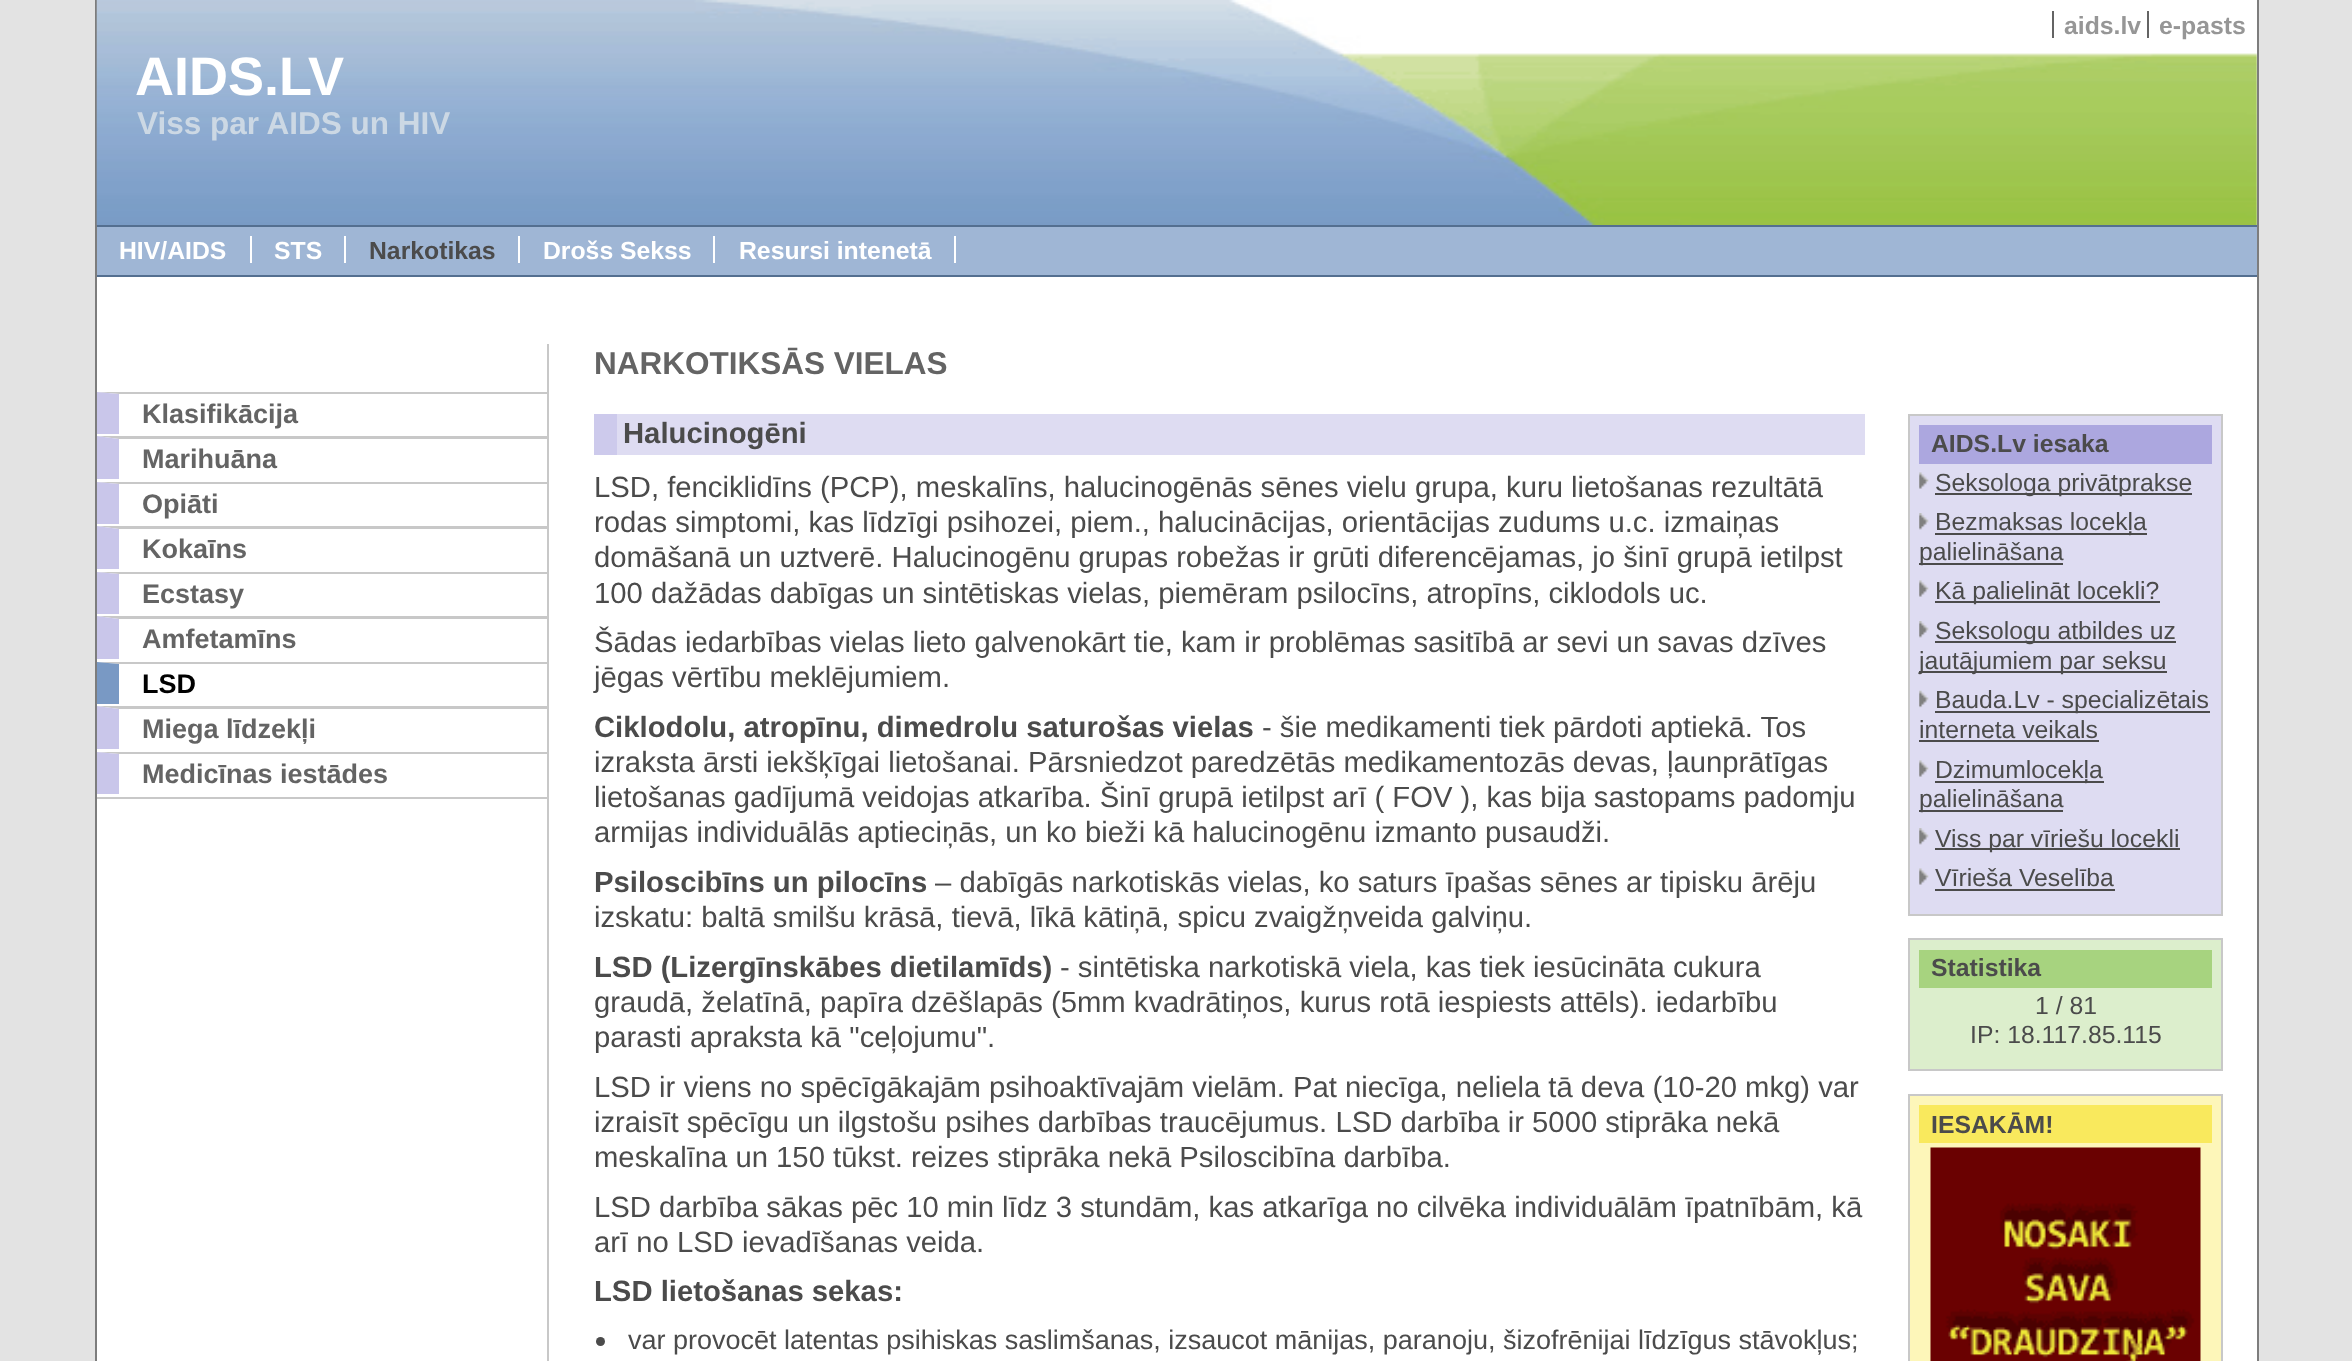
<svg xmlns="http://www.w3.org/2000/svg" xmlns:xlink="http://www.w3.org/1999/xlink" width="2352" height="1361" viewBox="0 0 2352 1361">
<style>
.cls-1{font:bold 24.75px Liberation Sans;fill:#969696}
.cls-2{font:bold 54px Liberation Sans;fill:#ffffff}
.cls-3{font:bold 31.5px Liberation Sans;fill:#ccd8e4}
.cls-4{font:bold 24.75px Liberation Sans;fill:#ffffff}
.cls-5{font:bold 24.75px Liberation Sans;fill:#4b4b4b}
.cls-6{font:bold 27px Liberation Sans;fill:#646464}
.cls-7{font:bold 27px Liberation Sans;fill:#000000}
.cls-8{font:bold 31.5px Liberation Sans;fill:#646464}
.cls-9{font:bold 29.25px Liberation Sans;fill:#4b4b4b}
.cls-10{font:29.25px Liberation Sans;fill:#4b4b4b}
.cls-11{font:27px Liberation Sans;fill:#4b4b4b}
.cls-12{font:24.75px Liberation Sans;fill:#4b4b4b}
</style>
<rect width="100%" height="100%" fill="#ffffff"/>
<image xlink:href="image0.png" x="0" y="0" width="2352" height="1361"/>
<rect fill="#ffffff" x="97" y="0" width="2160" height="1361"/>
<rect fill="#7d7d7d" x="2257" y="0" width="2" height="1361"/>
<rect fill="#7d7d7d" x="95" y="0" width="2" height="1361"/>
<image xlink:href="image1.png" x="96" y="0" width="2161" height="225"/>
<rect fill="#646464" x="2052" y="11" width="2" height="27"/>
<rect fill="#646464" x="2147" y="11" width="2" height="27"/>
<rect fill="#9fb6d5" x="97" y="227" width="2160" height="48"/>
<rect fill="#546f90" x="97" y="225" width="2160" height="2"/>
<rect fill="#546f90" x="97" y="275" width="2160" height="2"/>
<rect fill="#ffffff" x="250" y="236" width="2" height="27"/>
<rect fill="#ffffff" x="344" y="236" width="2" height="27"/>
<rect fill="#ffffff" x="518" y="236" width="2" height="27"/>
<rect fill="#ffffff" x="713" y="236" width="2" height="27"/>
<rect fill="#ffffff" x="954" y="236" width="2" height="27"/>
<rect fill="#c8c8c8" x="97" y="797" width="450" height="2"/>
<path fill="#c8c8c8" d="M97 392H547V394H119Z"/>
<path fill="#c9c6ea" d="M97 434V392L119 394V434Z"/>
<path fill="#c8c8c8" d="M97 436H547V439H119Z"/>
<path fill="#c9c6ea" d="M97 479V436L119 439V479Z"/>
<path fill="#c8c8c8" d="M97 482H547V484H119Z"/>
<path fill="#c9c6ea" d="M97 524V482L119 484V524Z"/>
<path fill="#c8c8c8" d="M97 526H547V529H119Z"/>
<path fill="#c9c6ea" d="M97 569V526L119 529V569Z"/>
<path fill="#c8c8c8" d="M97 572H547V574H119Z"/>
<path fill="#c9c6ea" d="M97 614V572L119 574V614Z"/>
<path fill="#c8c8c8" d="M97 616H547V619H119Z"/>
<path fill="#c9c6ea" d="M97 659V616L119 619V659Z"/>
<path fill="#c8c8c8" d="M97 662H547V664H119Z"/>
<path fill="#7999c4" d="M97 704V662L119 664V704Z"/>
<path fill="#c8c8c8" d="M97 706H547V709H119Z"/>
<path fill="#c9c6ea" d="M97 749V706L119 709V749Z"/>
<path fill="#c8c8c8" d="M97 752H547V754H119Z"/>
<path fill="#c9c6ea" d="M97 794V752L119 754V794Z"/>
<rect fill="#c8c8c8" x="547" y="344" width="2" height="1017"/>
<rect fill="#cdcaec" x="594" y="414" width="23" height="41"/>
<rect fill="#dedcf2" x="617" y="414" width="1248" height="41"/>
<circle fill="#4b4b4b" cx="600.5" cy="1341.5" r="4.5"/>
<rect fill="#dedcf2" stroke="#c8c8c8" stroke-width="2" x="1909" y="415" width="313" height="500"/>
<rect fill="#aca7df" x="1919" y="425" width="293" height="39"/>
<image xlink:href="image2.png" x="1919" y="472" width="10" height="17"/>
<rect fill="#4b4b4b" x="1935" y="493" width="257" height="2"/>
<image xlink:href="image3.png" x="1919" y="513" width="10" height="17"/>
<rect fill="#4b4b4b" x="1935" y="533" width="212" height="2"/>
<rect fill="#4b4b4b" x="1919" y="563" width="144" height="2"/>
<image xlink:href="image2.png" x="1919" y="580" width="10" height="17"/>
<rect fill="#4b4b4b" x="1935" y="601" width="225" height="2"/>
<image xlink:href="image3.png" x="1919" y="621" width="10" height="17"/>
<rect fill="#4b4b4b" x="1935" y="641" width="241" height="2"/>
<rect fill="#4b4b4b" x="1919" y="671" width="248" height="2"/>
<image xlink:href="image4.png" x="1919" y="690" width="10" height="18"/>
<rect fill="#4b4b4b" x="1935" y="711" width="275" height="2"/>
<rect fill="#4b4b4b" x="1919" y="740" width="180" height="2"/>
<image xlink:href="image2.png" x="1919" y="760" width="10" height="17"/>
<rect fill="#4b4b4b" x="1935" y="781" width="169" height="2"/>
<rect fill="#4b4b4b" x="1919" y="810" width="144" height="2"/>
<image xlink:href="image5.png" x="1919" y="828" width="10" height="17"/>
<rect fill="#4b4b4b" x="1935" y="848" width="245" height="2"/>
<image xlink:href="image2.png" x="1919" y="868" width="10" height="17"/>
<rect fill="#4b4b4b" x="1935" y="889" width="180" height="2"/>
<rect fill="#dceecc" stroke="#c8c8c8" stroke-width="2" x="1909" y="939" width="313" height="131"/>
<rect fill="#a7d37f" x="1919" y="950" width="293" height="38"/>
<rect fill="#fdf6b9" stroke="#c8c8c8" stroke-width="2" x="1909" y="1095" width="313" height="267"/>
<rect fill="#f9e95d" x="1919" y="1105" width="293" height="38"/>
<image xlink:href="image6.png" x="1930" y="1147" width="271" height="214"/>
<text class="cls-1" x="2064" y="34">aids.lv</text>
<text class="cls-1" x="2159" y="34">e-pasts</text>
<text class="cls-2" x="135" y="95">AIDS.LV</text>
<text class="cls-3" x="137" y="134">Viss par AIDS un HIV</text>
<text class="cls-4" x="119" y="259">HIV/AIDS</text>
<text class="cls-4" x="274" y="259">STS</text>
<text class="cls-5" x="369" y="259">Narkotikas</text>
<text class="cls-4" x="543" y="259">Drošs Sekss</text>
<text class="cls-4" x="739" y="259">Resursi intenetā</text>
<text class="cls-6"><tspan x="142" y="423">Klasifikācija</tspan><tspan x="142" y="468">Marihuāna</tspan><tspan x="142" y="513">Opiāti</tspan><tspan x="142" y="558">Kokaīns</tspan><tspan x="142" y="603">Ecstasy</tspan><tspan x="142" y="648">Amfetamīns</tspan></text>
<text class="cls-7" x="142" y="693">LSD</text>
<text class="cls-6"><tspan x="142" y="738">Miega līdzekļi</tspan><tspan x="142" y="783">Medicīnas iestādes</tspan></text>
<text class="cls-8" x="594" y="374">NARKOTIKSĀS VIELAS</text>
<text class="cls-9" x="623" y="443">Halucinogēni</text>
<text class="cls-10"><tspan x="594" y="497">LSD, fenciklidīns (PCP), meskalīns, halucinogēnās sēnes vielu grupa, kuru lietošanas rezultātā</tspan><tspan x="594" y="532">rodas simptomi, kas līdzīgi psihozei, piem., halucinācijas, orientācijas zudums u.c. izmaiņas</tspan><tspan x="594" y="567">domāšanā un uztverē. Halucinogēnu grupas robežas ir grūti diferencējamas, jo šinī grupā ietilpst</tspan><tspan x="594" y="603">100 dažādas dabīgas un sintētiskas vielas, piemēram psilocīns, atropīns, ciklodols uc.</tspan><tspan x="594" y="652">Šādas iedarbības vielas lieto galvenokārt tie, kam ir problēmas sasitībā ar sevi un savas dzīves</tspan><tspan x="594" y="687">jēgas vērtību meklējumiem.</tspan></text>
<text class="cls-9" x="594" y="737">Ciklodolu, atropīnu, dimedrolu saturošas vielas</text>
<text class="cls-10" x="1262" y="737">- šie medikamenti tiek pārdoti aptiekā. Tos</text>
<text class="cls-10"><tspan x="594" y="772">izraksta ārsti iekšķīgai lietošanai. Pārsniedzot paredzētās medikamentozās devas, ļaunprātīgas</tspan><tspan x="594" y="807">lietošanas gadījumā veidojas atkarība. Šinī grupā ietilpst arī ( FOV ), kas bija sastopams padomju</tspan><tspan x="594" y="842">armijas individuālās aptieciņās, un ko bieži kā halucinogēnu izmanto pusaudži.</tspan></text>
<text class="cls-9" x="594" y="892">Psiloscibīns un pilocīns</text>
<text class="cls-10" x="935" y="892">– dabīgās narkotiskās vielas, ko saturs īpašas sēnes ar tipisku ārēju</text>
<text class="cls-10" x="594" y="927">izskatu: baltā smilšu krāsā, tievā, līkā kātiņā, spicu zvaigžņveida galviņu.</text>
<text class="cls-9" x="594" y="977">LSD (Lizergīnskābes dietilamīds)</text>
<text class="cls-10" x="1060" y="977">- sintētiska narkotiskā viela, kas tiek iesūcināta cukura</text>
<text class="cls-10"><tspan x="594" y="1012">graudā, želatīnā, papīra dzēšlapās (5mm kvadrātiņos, kurus rotā iespiests attēls). iedarbību</tspan><tspan x="594" y="1047">parasti apraksta kā "ceļojumu".</tspan><tspan x="594" y="1097">LSD ir viens no spēcīgākajām psihoaktīvajām vielām. Pat niecīga, neliela tā deva (10-20 mkg) var</tspan><tspan x="594" y="1132">izraisīt spēcīgu un ilgstošu psihes darbības traucējumus. LSD darbība ir 5000 stiprāka nekā</tspan><tspan x="594" y="1167">meskalīna un 150 tūkst. reizes stiprāka nekā Psiloscibīna darbība.</tspan><tspan x="594" y="1217">LSD darbība sākas pēc 10 min līdz 3 stundām, kas atkarīga no cilvēka individuālām īpatnībām, kā</tspan><tspan x="594" y="1252">arī no LSD ievadīšanas veida.</tspan></text>
<text class="cls-9" x="594" y="1301">LSD lietošanas sekas:</text>
<text class="cls-11" x="628" y="1349">var provocēt latentas psihiskas saslimšanas, izsaucot mānijas, paranoju, šizofrēnijai līdzīgus stāvokļus;</text>
<text class="cls-5" x="1931" y="452">AIDS.Lv iesaka</text>
<text class="cls-12"><tspan x="1935" y="491">Seksologa privātprakse</tspan><tspan x="1935" y="530">Bezmaksas locekļa</tspan></text>
<text class="cls-12" x="1919" y="560">palielināšana</text>
<text class="cls-12"><tspan x="1935" y="599">Kā palielināt locekli?</tspan><tspan x="1935" y="639">Seksologu atbildes uz</tspan></text>
<text class="cls-12" x="1919" y="669">jautājumiem par seksu</text>
<text class="cls-12" x="1935" y="708">Bauda.Lv - specializētais</text>
<text class="cls-12" x="1919" y="738">interneta veikals</text>
<text class="cls-12" x="1935" y="778">Dzimumlocekļa</text>
<text class="cls-12" x="1919" y="807">palielināšana</text>
<text class="cls-12"><tspan x="1935" y="847">Viss par vīriešu locekli</tspan><tspan x="1935" y="886">Vīrieša Veselība</tspan></text>
<text class="cls-5" x="1931" y="976">Statistika</text>
<text class="cls-12" x="2035" y="1014">1 / 81</text>
<text class="cls-12" x="1970" y="1043">IP: 18.117.85.115</text>
<text class="cls-5" x="1931" y="1133">IESAKĀM!</text>
</svg>
